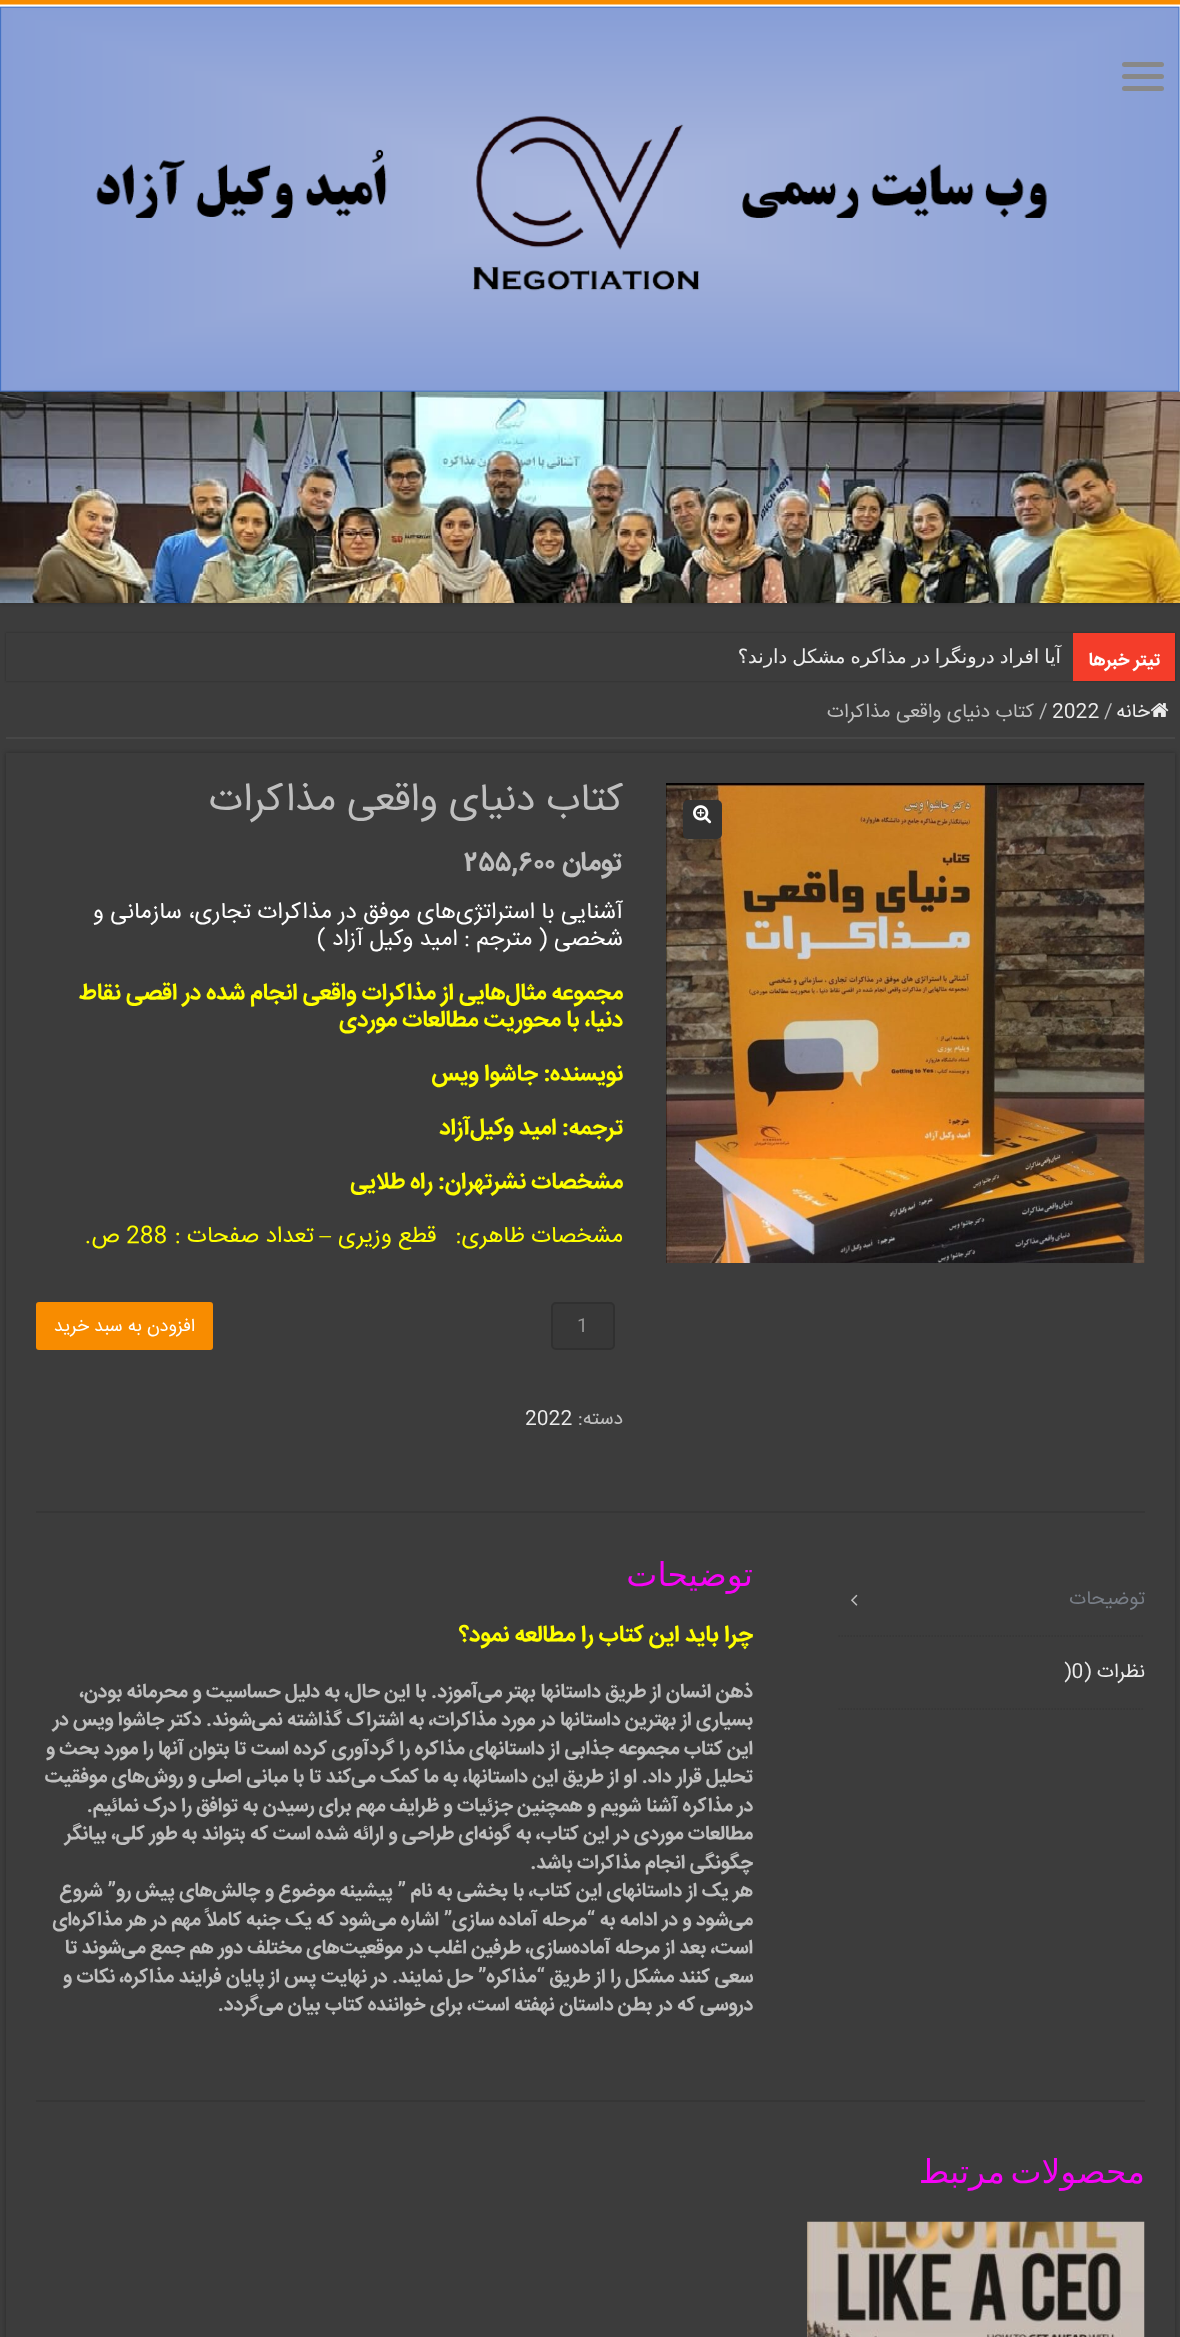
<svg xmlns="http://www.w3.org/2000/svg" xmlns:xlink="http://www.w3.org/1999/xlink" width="1180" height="2337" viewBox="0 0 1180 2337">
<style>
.cls-1{font:bold 18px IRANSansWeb;direction:rtl;fill:#ffffff}
.cls-2{font:19.5px DejaVu Sans;direction:rtl;fill:#ececec}
.cls-3{font:19.5px IRANSansWeb;direction:rtl;fill:#ececec}
.cls-4{font:19.5px IRANSansWeb;fill:#bfbfbf}
.cls-5{font:19.5px IRANSansWeb;fill:#ececec}
.cls-6{font:19.5px IRANSansWeb;direction:rtl;fill:#bfbfbf}
.cls-7{font:39px IRANSansWeb;direction:rtl;fill:#bfbfbf}
.cls-8{font:bold 27px IRANSansWeb;direction:rtl;fill:#bfbfbf}
.cls-9{font:bold 27px IRANSansWeb;fill:#bfbfbf}
.cls-10{font:22.8px IRANSansWeb;direction:rtl;fill:#ffffff}
.cls-11{font:bold 22.8px IRANSansWeb;direction:rtl;fill:#ffff00}
.cls-12{font:22.8px IRANSansWeb;direction:rtl;fill:#ffff00}
.cls-13{font:22.8px Liberation Serif;direction:rtl;fill:#ffff00}
.cls-14{font:22.8px IRANSansWeb;fill:#ffff00}
.cls-15{font:18px IRANSansWeb;fill:#999999}
.cls-16{font:18px IRANSansWeb;direction:rtl;fill:#ffffff}
.cls-17{font:19.5px IRANSansWeb;direction:rtl;fill:#787e87}
.cls-18{font:33px DejaVu Sans;direction:rtl;fill:#f503f5}
.cls-19{font:bold 19.5px IRANSansWeb;direction:rtl;fill:#bfbfbf}
</style>
<defs>
<clipPath id="clip1"><rect x="36" y="783" width="1109" height="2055"/></clipPath>
</defs>
<rect width="100%" height="100%" fill="#3c3c3c"/>
<rect fill="#2a2a2a" filter="blur(2px)" x="0" y="0" width="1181" height="603"/>
<rect fill="#f88c00" x="0" y="0" width="1180" height="5"/>
<image xlink:href="image0.png" x="0" y="4" width="1180" height="599"/>
<rect fill="#888888" x="1122" y="62" width="42" height="5" rx="2.5"/>
<rect fill="#888888" x="1122" y="74" width="42" height="5" rx="2.5"/>
<rect fill="#888888" x="1122" y="86" width="42" height="5" rx="2.5"/>
<rect fill="#2a2a2a" filter="blur(1px)" x="6" y="633" width="1169" height="48"/>
<rect fill="#3c3c3c" x="6" y="633" width="1067" height="48"/>
<rect fill="#f43d2a" x="1073" y="633" width="102" height="48"/>
<rect fill="#474747" x="6" y="737" width="1169" height="2"/>
<image xlink:href="image1.png" x="1150" y="703" width="19" height="14"/>
<rect fill="#2a2a2a" filter="blur(2px)" x="6" y="753" width="1169" height="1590"/>
<rect fill="#3c3c3c" x="6" y="753" width="1169" height="1584"/>
<image xlink:href="image2.png" x="666" y="783" width="479" height="480"/>
<rect fill="#333333" x="683" y="800" width="39" height="39" rx="5"/>
<image xlink:href="image3.png" x="693" y="805" width="19" height="19"/>
<rect fill="#383838" stroke="#303030" stroke-width="2" x="552" y="1303" width="62" height="46" rx="4"/>
<rect fill="#f88c00" x="36" y="1302" width="177" height="48" rx="3"/>
<rect fill="#363636" x="36" y="1511" width="1109" height="2"/>
<rect fill="#363636" x="36" y="2100" width="1109" height="2"/>
<path fill="none" stroke="#363636" stroke-width="1.5" stroke-dasharray="1.5 1.5" d="M838.5 1636H1144.5"/>
<image xlink:href="image4.png" x="851" y="1594" width="7" height="12"/>
<path fill="none" stroke="#363636" stroke-width="1.5" stroke-dasharray="1.5 1.5" d="M838.5 1709H1144.5"/>
<image xlink:href="image5.png" x="807" y="2221" width="338" height="116"/>
<text class="cls-1" x="1160" y="665">تیتر خبرها</text>
<text class="cls-2" x="1061" y="663" word-spacing="-1.25">آیا افراد درونگرا در مذاکره مشکل دارند؟</text>
<text class="cls-3" x="1150" y="717">خانه</text>
<text class="cls-4" x="1104" y="717">/</text>
<text class="cls-5" x="1052" y="717">2022</text>
<text class="cls-4" x="1039" y="717">/</text>
<text class="cls-6" x="1034" y="717">کتاب دنیای واقعی مذاکرات</text>
<g clip-path="url(#clip1)">
<text class="cls-7" x="623" y="810">کتاب دنیای واقعی مذاکرات</text>
</g>
<text class="cls-8" x="623" y="870">تومان</text>
<text class="cls-9" x="464" y="870">۲۵۵,۶۰۰</text>
<text class="cls-10"><tspan x="623" y="918">آشنایی با استراتژی‌های موفق در مذاکرات تجاری، سازمانی و</tspan><tspan x="623" y="945">شخصی ( مترجم : امید وکیل آزاد )</tspan></text>
<text class="cls-11"><tspan x="623" y="999">مجموعه مثال‌هایی از مذاکرات واقعی انجام شده در اقصی نقاط</tspan><tspan x="623" y="1026">دنیا، با محوریت مطالعات موردی</tspan></text>
<text class="cls-11" x="623" y="1080">نویسنده: جاشوا ویس</text>
<text class="cls-11" x="623" y="1134">ترجمه: امید وکیل‌آزاد</text>
<text class="cls-11" x="623" y="1188">مشخصات نشرتهران: راه طلایی</text>
<text class="cls-12" xml:space="preserve" x="623" y="1242">مشخصات ظاهری:   قطع وزیری</text>
<text class="cls-13" x="331" y="1242">–</text>
<text class="cls-12" x="314" y="1242">تعداد صفحات :</text>
<text class="cls-14" x="126" y="1242">288</text>
<text class="cls-12" x="120" y="1242">ص.</text>
<text class="cls-15" x="577" y="1331">1</text>
<text class="cls-16" x="195" y="1331">افزودن به سبد خرید</text>
<text class="cls-6" x="623" y="1424">دسته:</text>
<text class="cls-5" x="525" y="1424">2022</text>
<text class="cls-17" x="1145" y="1604">توضیحات</text>
<text class="cls-3" x="1145" y="1677">نظرات (</text>
<text class="cls-5" x="1064" y="1677">)0</text>
<text class="cls-18" x="753" y="1586">توضیحات</text>
<text class="cls-11" x="753" y="1641">چرا باید این کتاب را مطالعه نمود؟</text>
<text class="cls-19"><tspan x="753" y="1697">ذهن انسان از طریق داستانها بهتر می‌آموزد. با این حال، به دلیل حساسیت و محرمانه بودن،</tspan><tspan x="753" y="1725">بسیاری از بهترین داستانها در مورد مذاکرات، به اشتراک گذاشته نمی‌شوند. دکتر جاشوا ویس در</tspan><tspan x="753" y="1754">این کتاب مجموعه جذابی از داستانهای مذاکره را گردآوری کرده است تا بتوان آنها را مورد بحث و</tspan><tspan x="753" y="1782">تحلیل قرار داد. او از طریق این داستانها، به ما کمک می‌کند تا با مبانی اصلی و روش‌های موفقیت</tspan><tspan x="753" y="1811">در مذاکره آشنا شویم و همچنین جزئیات و ظرایف مهم برای رسیدن به توافق را درک نمائیم.</tspan><tspan x="753" y="1839">مطالعات موردی در این کتاب، به گونه‌ای طراحی و ارائه شده است که بتواند به طور کلی، بیانگر</tspan><tspan x="753" y="1868">چگونگی انجام مذاکرات باشد.</tspan><tspan x="753" y="1896">هر یک از داستانهای این کتاب، با بخشی به نام ” پیشینه موضوع و چالش‌های پیش رو” شروع</tspan><tspan x="753" y="1925">می‌شود و در ادامه به “مرحله آماده سازی” اشاره می‌شود که یک جنبه کاملاً مهم در هر مذاکره‌ای</tspan><tspan x="753" y="1953">است، بعد از مرحله آماده‌سازی، طرفین اغلب در موقعیت‌های مختلف دور هم جمع می‌شوند تا</tspan><tspan x="753" y="1982">سعی کنند مشکل را از طریق “مذاکره” حل نمایند. در نهایت پس از پایان فرایند مذاکره، نکات و</tspan><tspan x="753" y="2010">دروسی که در بطن داستان نهفته است، برای خواننده کتاب بیان می‌گردد.</tspan></text>
<g clip-path="url(#clip1)">
<text class="cls-18" x="1145" y="2183" word-spacing="-5">محصولات مرتبط</text>
</g>
</svg>
